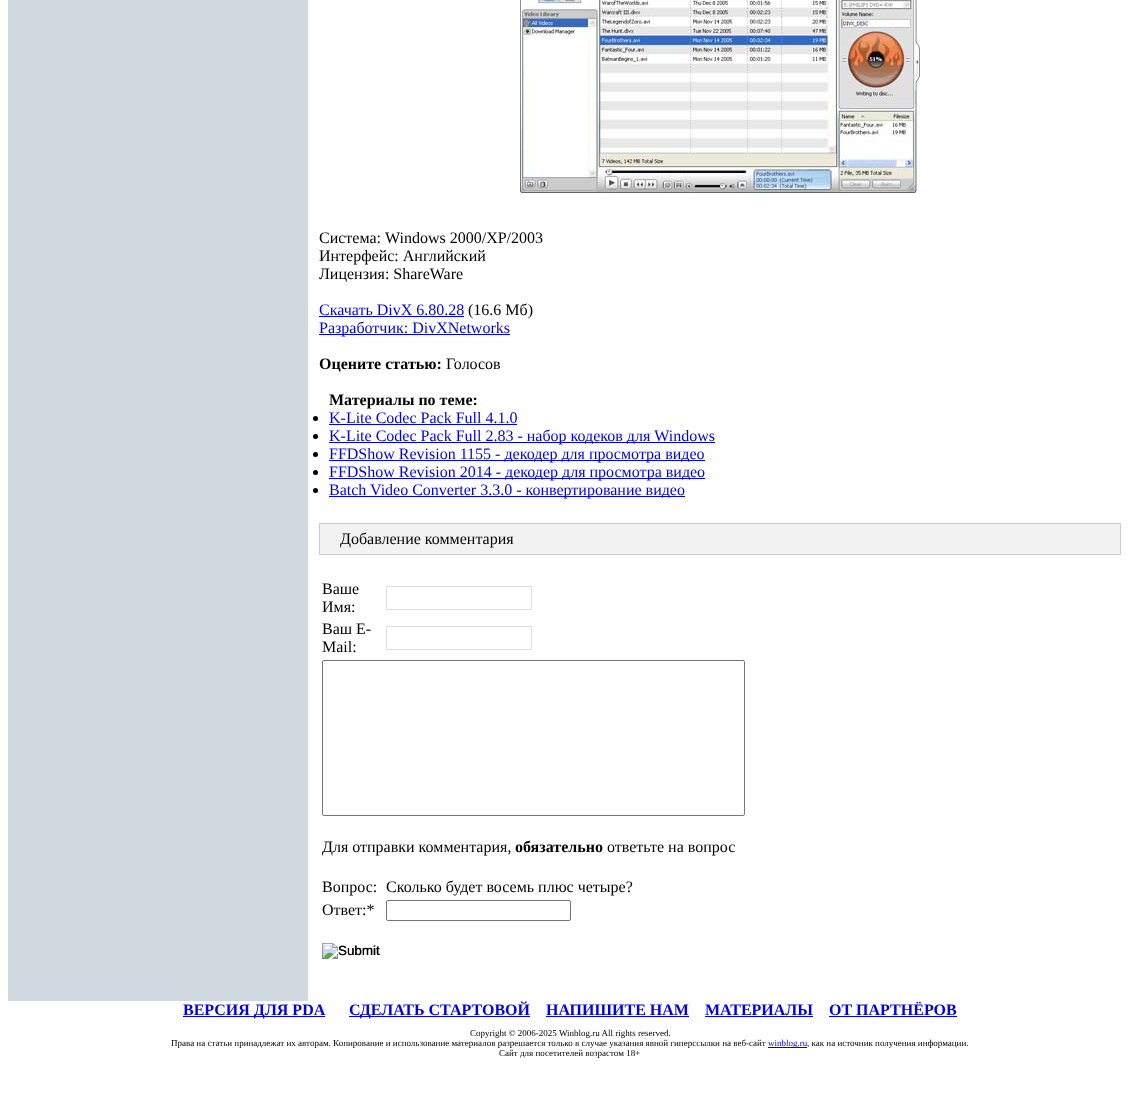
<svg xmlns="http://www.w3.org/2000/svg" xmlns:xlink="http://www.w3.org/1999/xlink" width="1140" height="1093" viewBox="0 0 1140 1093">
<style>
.cls-1{font:16px Liberation Serif;fill:#000000}
.cls-2{font:16px Liberation Serif;fill:#0000ee}
.cls-3{font:bold 16px Liberation Serif;fill:#000000}
.cls-4{font:13.5px Liberation Sans;fill:#000000}
.cls-5{font:bold 16px Liberation Serif;fill:#0000ee}
.cls-6{font:9px Liberation Serif;fill:#000000}
.cls-7{font:9px Liberation Serif;fill:#0000ee}
</style>
<rect width="100%" height="100%" fill="#ffffff"/>
<rect fill="#d0d9e0" x="8" y="0" width="300" height="1001"/>
<image xlink:href="image0.png" x="520" y="0" width="400" height="193"/>
<rect fill="#0000ee" x="319" y="316" width="145" height="1"/>
<rect fill="#0000ee" x="319" y="334" width="191" height="1"/>
<circle fill="#000000" cx="315.5" cy="418.5" r="2.5"/>
<rect fill="#0000ee" x="329" y="424" width="188" height="1"/>
<circle fill="#000000" cx="315.5" cy="436.5" r="2.5"/>
<rect fill="#0000ee" x="329" y="442" width="386" height="1"/>
<circle fill="#000000" cx="315.5" cy="454.5" r="2.5"/>
<rect fill="#0000ee" x="329" y="460" width="376" height="1"/>
<circle fill="#000000" cx="315.5" cy="472.5" r="2.5"/>
<rect fill="#0000ee" x="329" y="478" width="376" height="1"/>
<circle fill="#000000" cx="315.5" cy="490.5" r="2.5"/>
<rect fill="#0000ee" x="329" y="496" width="356" height="1"/>
<rect fill="#cccccc" x="319" y="523" width="802" height="32"/>
<rect fill="#f2f2f2" x="320" y="524" width="800" height="30"/>
<rect fill="none" stroke="#e0e0e0" x="386.5" y="586.5" width="145" height="23"/>
<rect fill="none" stroke="#e0e0e0" x="386.5" y="626.5" width="145" height="23"/>
<rect fill="none" stroke="#767676" x="322.5" y="660.5" width="422" height="155" rx="1.5"/>
<rect fill="none" stroke="#767676" x="386.5" y="900.5" width="184" height="20" rx="1.5"/>
<image xlink:href="image1.png" x="322" y="943" width="57" height="16"/>
<rect fill="#0000ee" x="183" y="1016" width="142" height="1"/>
<rect fill="#0000ee" x="349" y="1016" width="181" height="1"/>
<rect fill="#0000ee" x="546" y="1016" width="143" height="1"/>
<rect fill="#0000ee" x="705" y="1016" width="108" height="1"/>
<rect fill="#0000ee" x="829" y="1016" width="128" height="1"/>
<rect fill="#0000ee" x="768" y="1047" width="39" height="1"/>
<text class="cls-1"><tspan x="319" y="243">Система: Windows 2000/XP/2003</tspan><tspan x="319" y="261">Интерфейс: Английский</tspan><tspan x="319" y="279">Лицензия: ShareWare</tspan></text>
<text class="cls-2" x="319" y="315">Скачать DivX 6.80.28</text>
<text class="cls-1" x="468" y="315">(16.6 Мб)</text>
<text class="cls-2" x="319" y="333">Разработчик: DivXNetworks</text>
<text class="cls-3" x="319" y="369">Оцените статью:</text>
<text class="cls-1" x="446" y="369">Голосов</text>
<text class="cls-3" x="329" y="405">Материалы по теме:</text>
<text class="cls-2"><tspan x="329" y="423">K-Lite Codec Pack Full 4.1.0</tspan><tspan x="329" y="441">K-Lite Codec Pack Full 2.83 - набор кодеков для Windows</tspan><tspan x="329" y="459">FFDShow Revision 1155 - декодер для просмотра видео</tspan><tspan x="329" y="477">FFDShow Revision 2014 - декодер для просмотра видео</tspan><tspan x="329" y="495">Batch Video Converter 3.3.0 - конвертирование видео</tspan></text>
<text class="cls-1" x="340" y="544">Добавление комментария</text>
<text class="cls-1"><tspan x="322" y="594">Ваше</tspan><tspan x="322" y="612">Имя:</tspan><tspan x="322" y="634">Ваш E-</tspan><tspan x="322" y="652">Mail:</tspan></text>
<text class="cls-1" x="322" y="852">Для отправки комментария,</text>
<text class="cls-3" x="515" y="852">обязательно</text>
<text class="cls-1" x="607" y="852">ответьте на вопрос</text>
<text class="cls-1" x="322" y="892">Вопрос:</text>
<text class="cls-1" x="386" y="892">Сколько будет восемь плюс четыре?</text>
<text class="cls-1" x="322" y="915">Ответ:*</text>
<text class="cls-4" x="338" y="955">Submit</text>
<text class="cls-5" x="183" y="1015">ВЕРСИЯ ДЛЯ PDA</text>
<text class="cls-5" x="349" y="1015">СДЕЛАТЬ СТАРТОВОЙ</text>
<text class="cls-5" x="546" y="1015">НАПИШИТЕ НАМ</text>
<text class="cls-5" x="705" y="1015">МАТЕРИАЛЫ</text>
<text class="cls-5" x="829" y="1015">ОТ ПАРТНЁРОВ</text>
<text class="cls-6" x="470" y="1036">Copyright © 2006-2025 Winblog.ru All rights reserved.</text>
<text class="cls-6" x="171" y="1046">Права на статьи принадлежат их авторам. Копирование и использование материалов разрешается только в случае указания явной гиперссылки на веб-сайт</text>
<text class="cls-7" x="768" y="1046">winblog.ru</text>
<text class="cls-6" x="807" y="1046">, как на источник получения информации.</text>
<text class="cls-6" x="499" y="1056">Сайт для посетителей возрастом 18+</text>
</svg>
